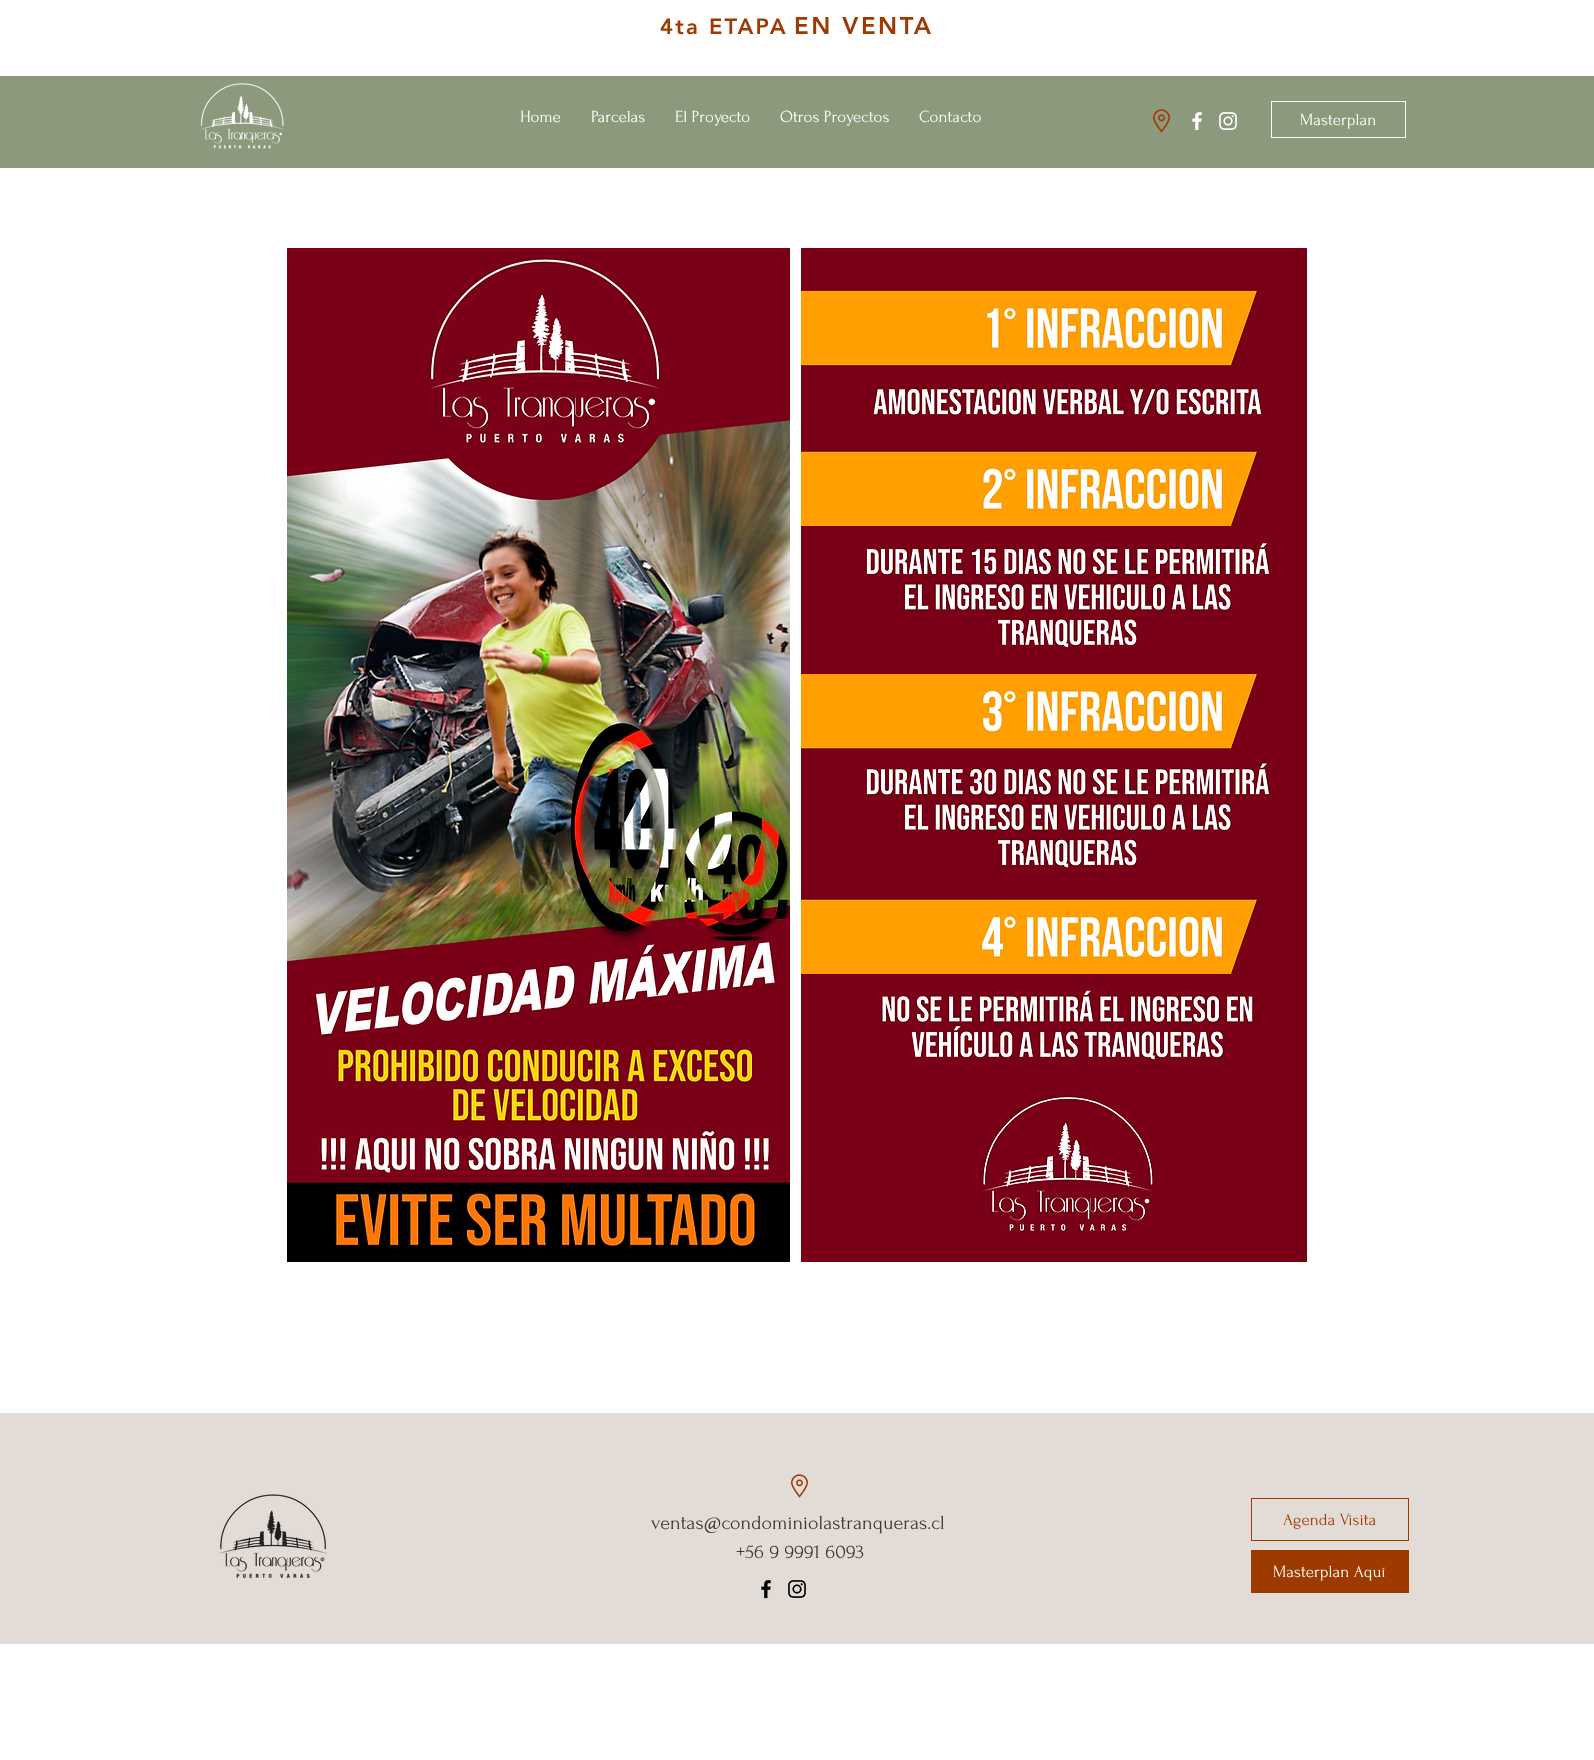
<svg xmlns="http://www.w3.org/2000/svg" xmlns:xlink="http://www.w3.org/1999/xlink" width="1594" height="1760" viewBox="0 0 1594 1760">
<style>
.cls-1{font:900 22px 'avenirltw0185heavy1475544';letter-spacing:2.25px;fill:#9e3a00}
.cls-2{font:900 24px 'avenirltw0185heavy1475544';letter-spacing:2.5px;fill:#9e3a00}
.cls-3{font:17px Forum;fill:#ffffff}
.cls-4{font:20px Forum;fill:#3b3737}
.cls-5{font:17px Forum;fill:#9e3a00}
</style>
<rect width="100%" height="100%" fill="#ffffff"/>
<rect fill="#8c997c" x="0" y="76" width="1594" height="92"/>
<image xlink:href="image0.png" x="200" y="83" width="84" height="66"/>
<image xlink:href="image1.png" x="1153" y="109" width="17" height="24"/>
<image xlink:href="image2.png" x="1192" y="111" width="10" height="20"/>
<image xlink:href="image3.png" x="1219" y="112" width="18" height="18"/>
<rect fill="none" stroke="#ffffff" x="1271.5" y="101.5" width="134" height="36"/>
<image xlink:href="image4.png" x="287" y="248" width="503" height="1014"/>
<image xlink:href="image5.png" x="801" y="248" width="506" height="1014"/>
<rect fill="#e3dbd5" x="0" y="1413" width="1594" height="231"/>
<image xlink:href="image6.png" x="219" y="1494" width="108" height="85"/>
<image xlink:href="image7.png" x="791" y="1474" width="17" height="24"/>
<image xlink:href="image8.png" x="761" y="1579" width="10" height="20"/>
<image xlink:href="image9.png" x="788" y="1580" width="18" height="18"/>
<rect fill="none" stroke="#9e3a00" x="1251.5" y="1498.5" width="157" height="42"/>
<rect fill="#9e3a00" x="1251" y="1550" width="158" height="43"/>
<text class="cls-1" x="660" y="34">4ta ETAPA</text>
<text class="cls-2" x="794" y="34">EN VENTA</text>
<text class="cls-3" x="520" y="122">Home</text>
<text class="cls-3" x="591" y="122">Parcelas</text>
<text class="cls-3" x="675" y="122">El Proyecto</text>
<text class="cls-3" x="780" y="122">Otros Proyectos</text>
<text class="cls-3" x="919" y="122">Contacto</text>
<text class="cls-3" x="1300" y="125">Masterplan</text>
<text class="cls-4" x="651" y="1529">ventas@condominiolastranqueras.cl</text>
<text class="cls-4" x="736" y="1558">+56 9 9991 6093</text>
<text class="cls-5" x="1283" y="1525">Agenda Visita</text>
<text class="cls-3" x="1273" y="1577">Masterplan Aquí</text>
</svg>
